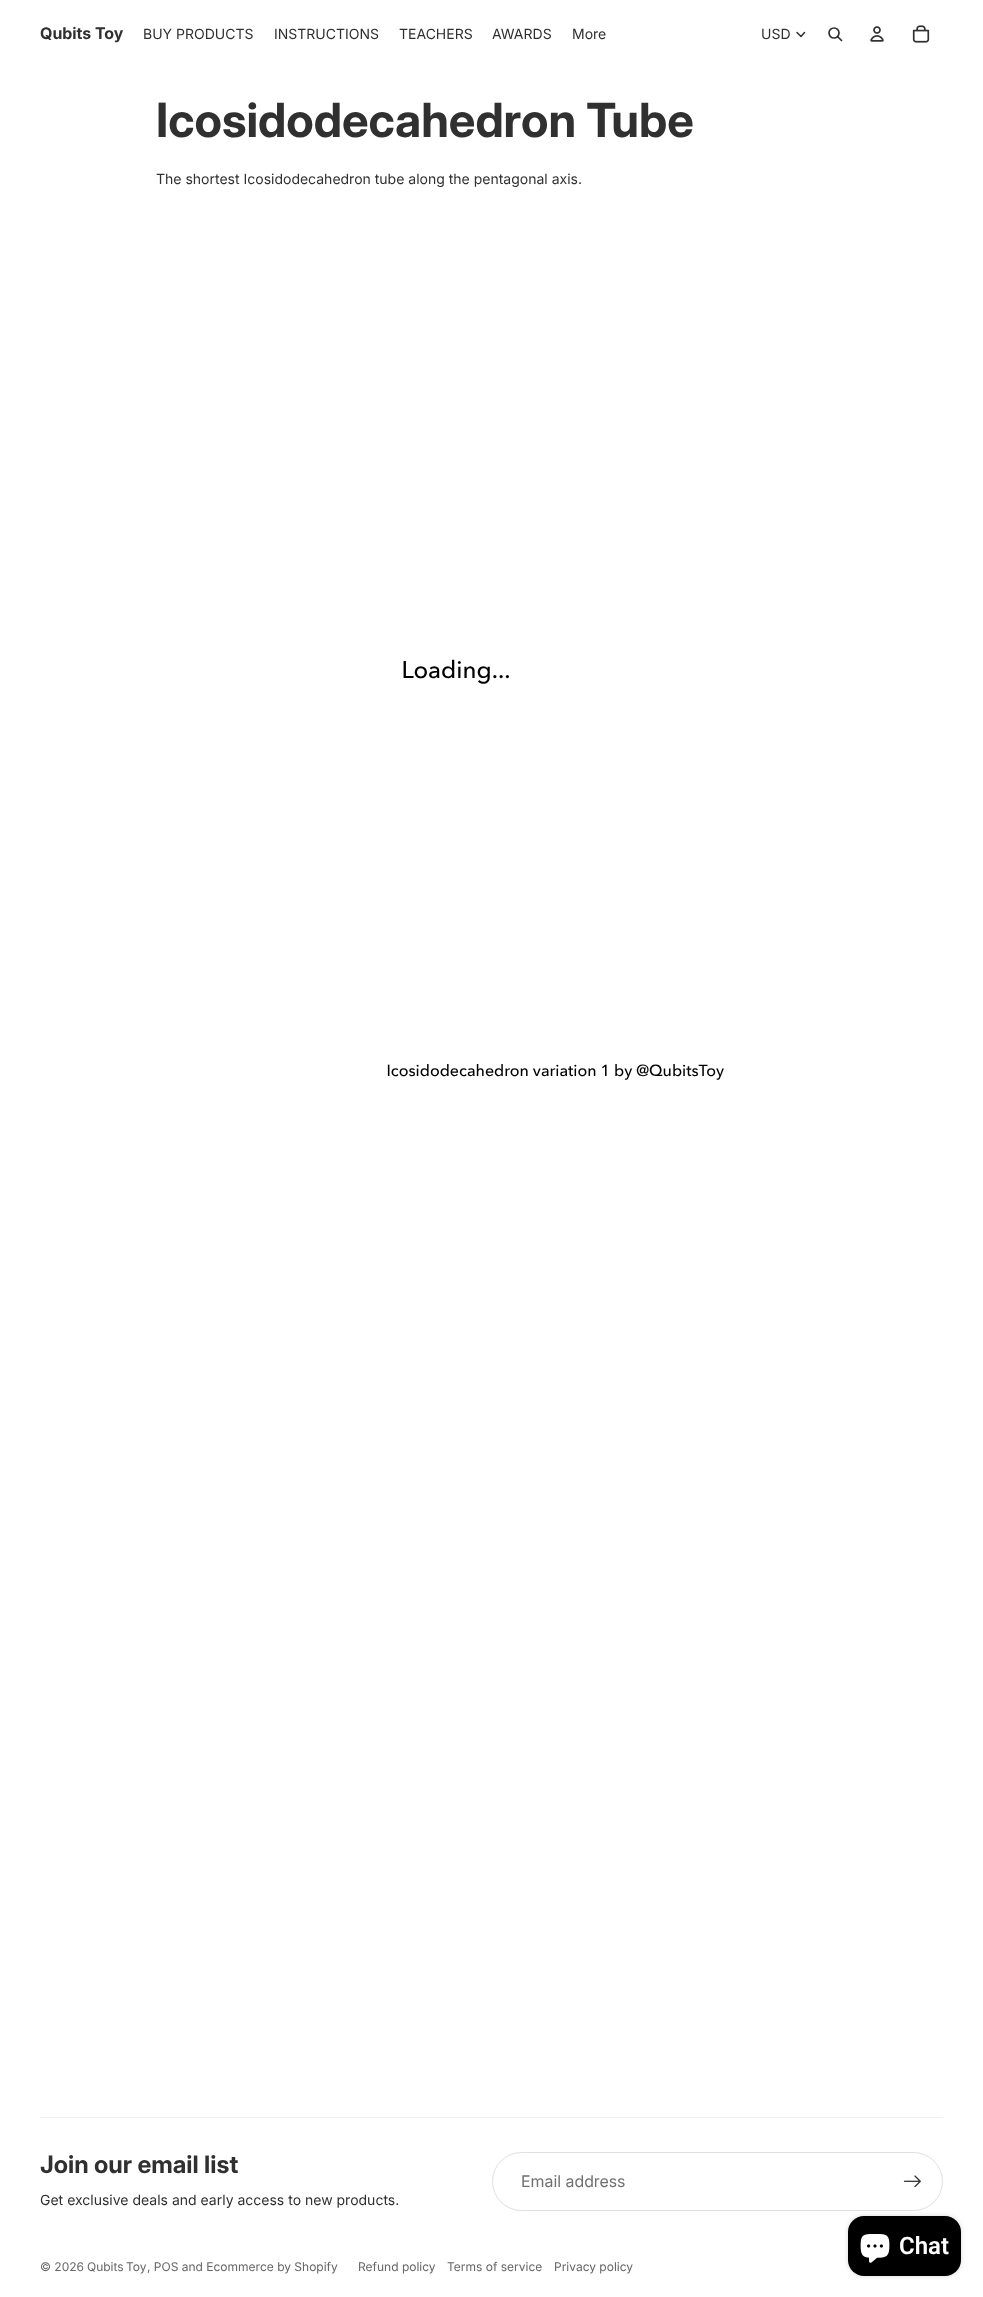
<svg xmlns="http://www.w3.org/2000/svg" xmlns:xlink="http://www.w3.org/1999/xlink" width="983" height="2297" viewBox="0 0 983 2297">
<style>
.cls-1{font:bold 16px 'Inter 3';fill:#303030}
.cls-2{font:14px Inter;fill:#303030}
.cls-3{font:bold 47.25px Inter;fill:#303030}
.cls-4{font:bold 24px 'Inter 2';fill:#303030}
.cls-5{font:16px 'Inter 2';fill:#707070}
.cls-6{font:12px Inter;fill:#666666}
.cls-7{font:600 24px Roboto;fill:#ffffff}
</style>
<rect width="100%" height="100%" fill="#ffffff"/>
<path fill="none" stroke="#303030" stroke-width="1.5" stroke-linecap="round" stroke-linejoin="round" d="M804.5 32.5L801 36.5L797 32.5"/>
<circle fill="none" stroke="#303030" stroke-width="1.7" cx="834" cy="33" r="5"/>
<path fill="none" stroke="#000000" stroke-opacity="0.81" stroke-width="1.7" stroke-linecap="round" stroke-linejoin="round" d="M838 37L841.5 40.5"/>
<image xlink:href="image0.png" x="870" y="26" width="14" height="16"/>
<image xlink:href="image1.png" x="912" y="25" width="18" height="18"/>
<image xlink:href="image2.png" x="387" y="659" width="337" height="421"/>
<path fill="#f0f0f0" d="M943 2117V2118L942 2117Z"/>
<path fill="#000000" fill-opacity="0.06" d="M943 2118H40V2117H942Z"/>
<rect fill="none" stroke="#dfdfdf" x="492.5" y="2152.5" width="450" height="58" rx="29"/>
<image xlink:href="image3.png" x="903" y="2175" width="18" height="13"/>
<rect fill="#000000" fill-opacity="0.15" filter="blur(2.5px)" x="848" y="2216" width="113" height="60" rx="16"/>
<rect fill="#000000" x="848" y="2216" width="113" height="60" rx="16"/>
<image xlink:href="image4.png" x="860" y="2234" width="30" height="29"/>
<text class="cls-1" x="40" y="39">Qubits Toy</text>
<text class="cls-2" x="143" y="39">BUY PRODUCTS</text>
<text class="cls-2" x="274" y="39">INSTRUCTIONS</text>
<text class="cls-2" x="399" y="39">TEACHERS</text>
<text class="cls-2" x="492" y="39">AWARDS</text>
<text class="cls-2" x="572" y="39">More</text>
<text class="cls-2" x="761" y="39">USD</text>
<text class="cls-3" x="156" y="137">Icosidodecahedron Tube</text>
<text class="cls-2" x="156" y="184">The shortest Icosidodecahedron tube along the pentagonal axis.</text>
<text class="cls-4" x="40" y="2173">Join our email list</text>
<text class="cls-2" x="40" y="2205">Get exclusive deals and early access to new products.</text>
<text class="cls-5" x="521" y="2187">Email address</text>
<text class="cls-6" x="40" y="2271">© 2026</text>
<text class="cls-6" x="87" y="2271" word-spacing="-1">Qubits Toy</text>
<text class="cls-6" x="147" y="2271">, POS and Ecommerce by Shopify</text>
<text class="cls-6" x="358" y="2271">Refund policy</text>
<text class="cls-6" x="447" y="2271">Terms of service</text>
<text class="cls-6" x="554" y="2271">Privacy policy</text>
<text class="cls-7" x="899" y="2254">Chat</text>
</svg>
